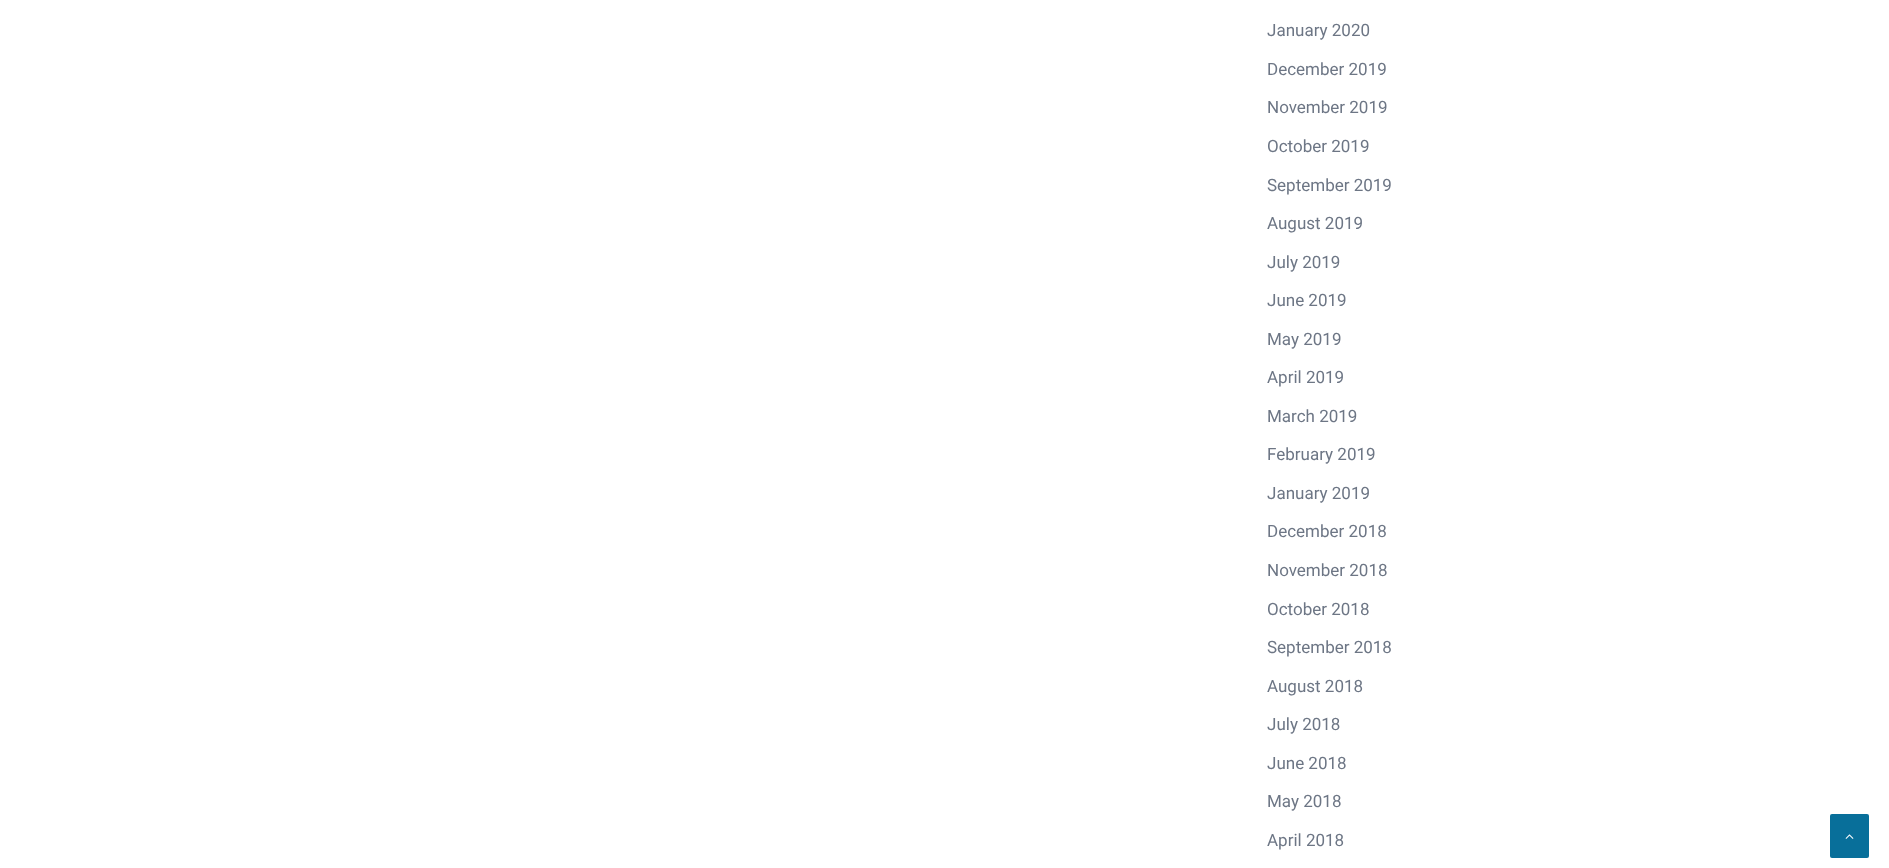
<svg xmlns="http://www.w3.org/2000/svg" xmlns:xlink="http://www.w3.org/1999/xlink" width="1889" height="868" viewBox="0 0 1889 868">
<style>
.cls-1{font:17px Roboto;fill:#6d7685}
</style>
<rect width="100%" height="100%" fill="#ffffff"/>
<rect fill="#086f9a" x="1830" y="814" width="39" height="44" rx="2"/>
<image xlink:href="image0.png" x="1845" y="834" width="9" height="5"/>
<text class="cls-1" x="1267" y="36">January 2020</text>
<text class="cls-1" x="1267" y="75">December 2019</text>
<text class="cls-1" x="1267" y="113">November 2019</text>
<text class="cls-1" x="1267" y="152">October 2019</text>
<text class="cls-1" x="1267" y="191">September 2019</text>
<text class="cls-1" x="1267" y="229">August 2019</text>
<text class="cls-1" x="1267" y="268">July 2019</text>
<text class="cls-1" x="1267" y="306">June 2019</text>
<text class="cls-1" x="1267" y="345">May 2019</text>
<text class="cls-1" x="1267" y="383">April 2019</text>
<text class="cls-1" x="1267" y="422">March 2019</text>
<text class="cls-1" x="1267" y="460">February 2019</text>
<text class="cls-1" x="1267" y="499">January 2019</text>
<text class="cls-1" x="1267" y="537">December 2018</text>
<text class="cls-1" x="1267" y="576">November 2018</text>
<text class="cls-1" x="1267" y="615">October 2018</text>
<text class="cls-1" x="1267" y="653">September 2018</text>
<text class="cls-1" x="1267" y="692">August 2018</text>
<text class="cls-1" x="1267" y="730">July 2018</text>
<text class="cls-1" x="1267" y="769">June 2018</text>
<text class="cls-1" x="1267" y="807">May 2018</text>
<text class="cls-1" x="1267" y="846">April 2018</text>
</svg>
